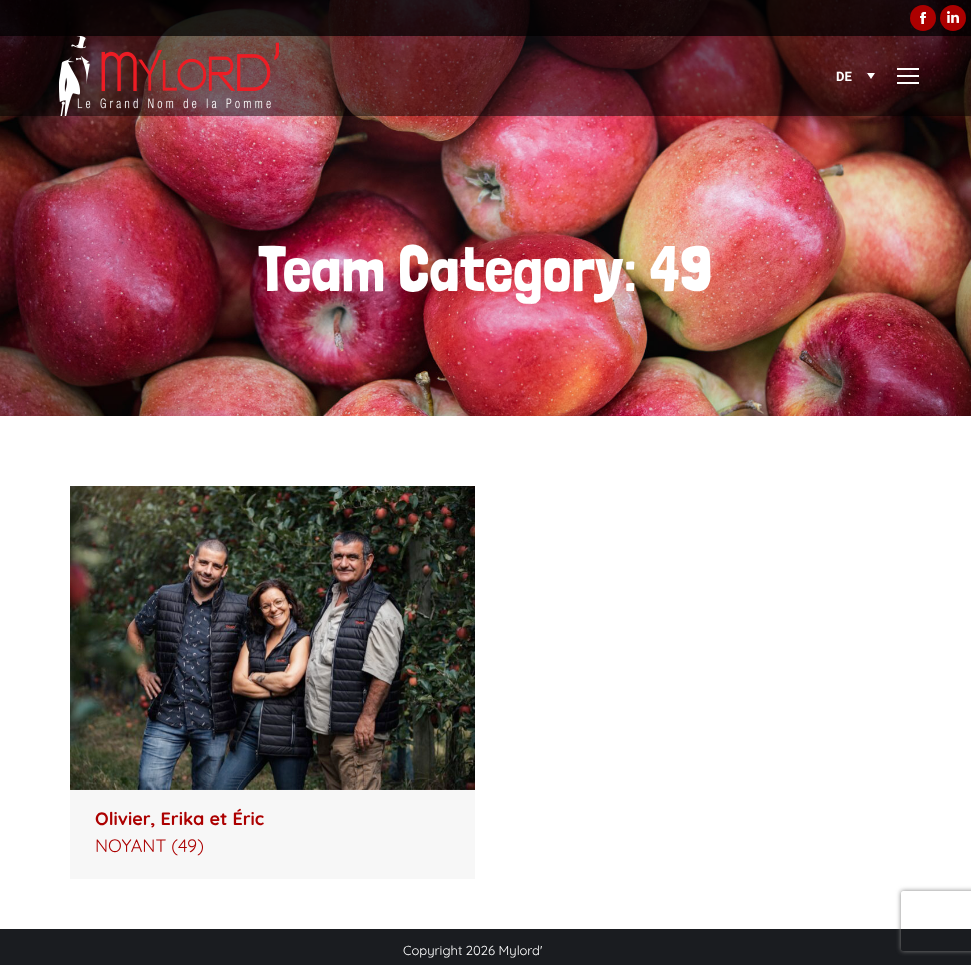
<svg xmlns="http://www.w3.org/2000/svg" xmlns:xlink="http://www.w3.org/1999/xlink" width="971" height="965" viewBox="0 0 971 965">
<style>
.cls-1{font:bold 13px Roboto;fill:#ffffff}
.cls-2{font:64px Londrina Solid;fill:#ffffff}
.cls-3{font:bold 18px Quicksand;fill:#ac0000}
.cls-4{font:18px Quicksand;fill:#ac0000}
.cls-5{font:13px Quicksand;fill:#ffffff}
</style>
<defs>
<clipPath id="clip1"><path d="M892 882H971V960H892ZM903 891H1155C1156 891 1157 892 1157 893V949C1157 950 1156 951 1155 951H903C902 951 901 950 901 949V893C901 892 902 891 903 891Z" clip-rule="evenodd"/></clipPath>
</defs>
<rect width="100%" height="100%" fill="#ffffff"/>
<image xlink:href="image3.png" x="0" y="0" width="971" height="416"/>
<rect fill="#000000" fill-opacity="0.5" x="0" y="0" width="971" height="116"/>
<rect fill="#000000" fill-opacity="0.72" x="0" y="0" width="971" height="36"/>
<circle fill="#ac0000" cx="923" cy="18" r="13"/>
<image xlink:href="image0.png" x="920" y="12" width="6" height="12"/>
<circle fill="#ac0000" cx="953" cy="18" r="13"/>
<image xlink:href="image1.png" x="947" y="11" width="12" height="12"/>
<image xlink:href="image2.png" x="59" y="36" width="220" height="80"/>
<path fill="#ffffff" d="M867 73H875L871 79Z"/>
<rect fill="#ffffff" x="897" y="68" width="22" height="2"/>
<rect fill="#ffffff" x="897" y="75" width="22" height="2"/>
<rect fill="#ffffff" x="897" y="82" width="22" height="2"/>
<rect fill="#f7f7f7" x="70" y="789" width="405" height="90"/>
<image xlink:href="image4.png" x="70" y="486" width="405" height="304"/>
<rect fill="#1a1c20" x="0" y="929" width="971" height="36"/>
<g clip-path="url(#clip1)">
<rect fill="#808080" filter="blur(2.5px)" x="901" y="891" width="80" height="60" rx="2"/>
</g>
<text class="cls-1" x="836" y="81">DE</text>
<text class="cls-2" x="258" y="291">Team Category: 49</text>
<text class="cls-3" x="95" y="825">Olivier, Erika et Éric</text>
<text class="cls-4" x="95" y="852">NOYANT (49)</text>
<text class="cls-5" x="403" y="955">Copyright 2026 Mylord'</text>
</svg>
